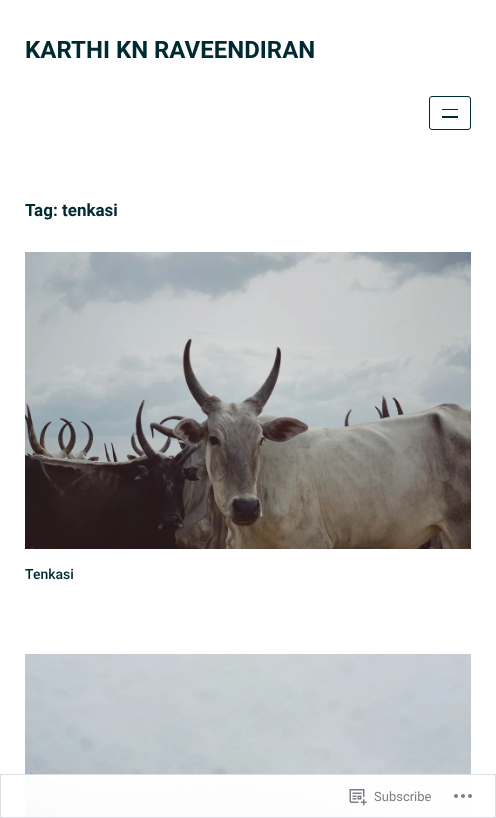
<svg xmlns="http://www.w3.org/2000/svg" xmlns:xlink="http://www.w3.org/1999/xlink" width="496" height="818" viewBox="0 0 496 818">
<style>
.cls-1{font:bold 24px Roboto;fill:#002a32}
.cls-2{font:bold 17px Roboto;fill:#002a32}
.cls-3{font:500 14px Roboto;fill:#002a32}
.cls-4{font:13px Roboto;fill:#7b7f84}
</style>
<rect width="100%" height="100%" fill="#ffffff"/>
<rect fill="none" stroke="#002a32" x="429.5" y="96.5" width="41" height="33" rx="2.5"/>
<rect fill="#002a32" x="442" y="109" width="16" height="1"/>
<rect fill="#002a32" x="442" y="116" width="16" height="2"/>
<image xlink:href="image0.png" x="25" y="252" width="446" height="297"/>
<image xlink:href="image1.png" x="25" y="654" width="446" height="164"/>
<rect fill="#ffffff" fill-opacity="0.98" x="25" y="774" width="446" height="44"/>
<rect fill="none" stroke="#dcdcde" stroke-opacity="0.98" x="0.5" y="774.5" width="495" height="43"/>
<image xlink:href="image2.png" x="349" y="789" width="18" height="17"/>
<image xlink:href="image3.png" x="454" y="794" width="18" height="4"/>
<text class="cls-1" x="25" y="58">KARTHI KN RAVEENDIRAN</text>
<text class="cls-2" x="25" y="216">Tag: tenkasi</text>
<text class="cls-3" x="25" y="579">Tenkasi</text>
<text class="cls-4" x="374" y="801">Subscribe</text>
</svg>
